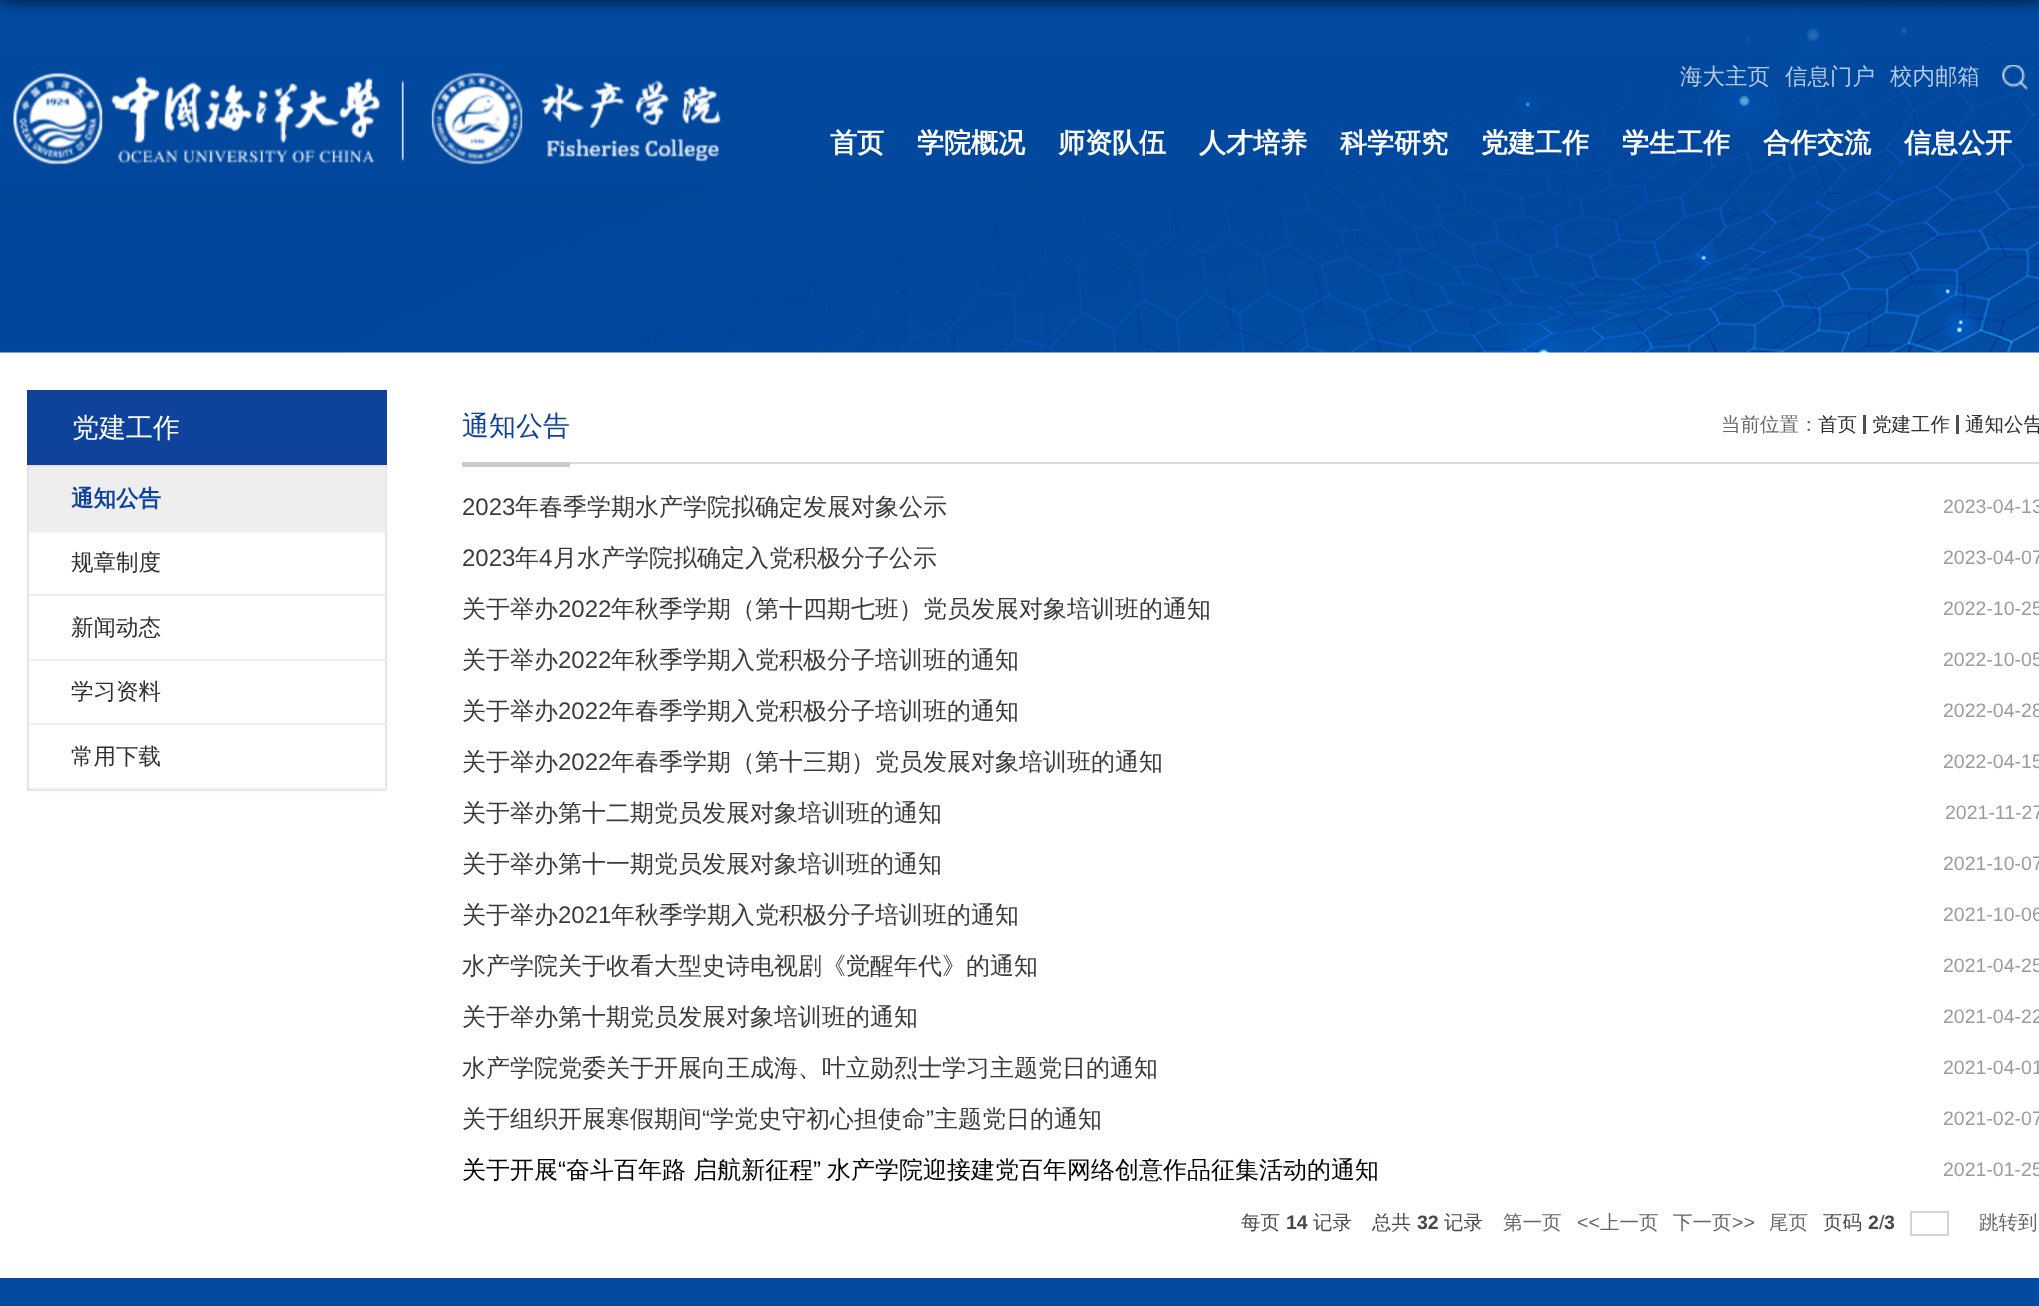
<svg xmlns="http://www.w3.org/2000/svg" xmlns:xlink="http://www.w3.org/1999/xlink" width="2039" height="1306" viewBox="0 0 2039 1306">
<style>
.cls-1{font:500 22.5px WenQuanYi Zen Hei;fill:#b3c9e3}
.cls-2{font:bold 27px WenQuanYi Zen Hei;fill:#ffffff}
.cls-3{font:500 27px WenQuanYi Zen Hei;fill:#ffffff}
.cls-4{font:bold 22.5px WenQuanYi Zen Hei;fill:#0f429b}
.cls-5{font:500 22.5px WenQuanYi Zen Hei;fill:#2f2f2f}
.cls-6{font:500 27px WenQuanYi Zen Hei;fill:#0f429b}
.cls-7{font:500 19.5px WenQuanYi Zen Hei;fill:#666666}
.cls-8{font:500 19.5px WenQuanYi Zen Hei;fill:#2f2f2f}
.cls-9{font:24px Liberation Sans;fill:#3b3b3b}
.cls-10{font:500 24px WenQuanYi Zen Hei;fill:#3b3b3b}
.cls-11{font:19.5px Liberation Sans;fill:#9c9c9c}
.cls-12{font:500 24px WenQuanYi Zen Hei;fill:#050001}
.cls-13{font:24px Liberation Sans;fill:#050001}
.cls-14{font:500 19.5px WenQuanYi Zen Hei;fill:#494949}
.cls-15{font:bold 19.5px Liberation Sans;fill:#494949}
.cls-16{font:19.5px Liberation Sans;fill:#666666}
.cls-17{font:19.5px Liberation Sans;fill:#494949}
</style>
<rect width="100%" height="100%" fill="#ffffff"/>
<image xlink:href="image0.png" x="0" y="0" width="2039" height="353"/>
<rect fill="#000000" fill-opacity="0.8" filter="blur(7.5px)" x="0" y="-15" width="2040" height="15"/>
<image xlink:href="image1.png" x="13" y="72" width="708" height="93"/>
<image xlink:href="image2.png" x="2002" y="65" width="26" height="26"/>
<rect fill="#0f429b" x="27" y="390" width="360" height="75"/>
<rect fill="none" stroke="#e4e4e4" stroke-width="2" x="28" y="466" width="358" height="324"/>
<rect fill="#eeeeee" x="29" y="467" width="357" height="63"/>
<rect fill="#f6eaea" x="29" y="530" width="357" height="2"/>
<rect fill="#f6eaea" x="29" y="594" width="357" height="2"/>
<rect fill="#f6eaea" x="29" y="659" width="357" height="2"/>
<rect fill="#f6eaea" x="29" y="723" width="357" height="2"/>
<rect fill="#f6eaea" x="29" y="788" width="357" height="2"/>
<rect fill="#dbdbdb" x="570" y="462" width="1469" height="2"/>
<rect fill="#cbcbcb" x="462" y="462" width="108" height="5"/>
<rect fill="#4e4e4e" x="1863" y="415" width="3" height="19"/>
<rect fill="#4e4e4e" x="1956" y="415" width="3" height="19"/>
<rect fill="none" stroke="#d5d5d5" stroke-width="2" x="1911" y="1212" width="37" height="23"/>
<rect fill="#024ba1" x="0" y="1278" width="2039" height="28"/>
<text class="cls-1" x="1680" y="84">海大主页</text>
<text class="cls-1" x="1785" y="84">信息门户</text>
<text class="cls-1" x="1890" y="84">校内邮箱</text>
<text class="cls-2" x="830" y="152">首页</text>
<text class="cls-2" x="917" y="152">学院概况</text>
<text class="cls-2" x="1058" y="152">师资队伍</text>
<text class="cls-2" x="1199" y="152">人才培养</text>
<text class="cls-2" x="1340" y="152">科学研究</text>
<text class="cls-2" x="1481" y="152">党建工作</text>
<text class="cls-2" x="1622" y="152">学生工作</text>
<text class="cls-2" x="1763" y="152">合作交流</text>
<text class="cls-2" x="1904" y="152">信息公开</text>
<text class="cls-3" x="72" y="437">党建工作</text>
<text class="cls-4" x="71" y="506">通知公告</text>
<text class="cls-5" x="71" y="570">规章制度</text>
<text class="cls-5" x="71" y="635">新闻动态</text>
<text class="cls-5" x="71" y="699">学习资料</text>
<text class="cls-5" x="71" y="764">常用下载</text>
<text class="cls-6" x="462" y="435">通知公告</text>
<text class="cls-7" x="1721" y="431">当前位置：</text>
<text class="cls-8" x="1818" y="431">首页</text>
<text class="cls-8" x="1872" y="431">党建工作</text>
<text class="cls-8" x="1965" y="431">通知公告</text>
<text class="cls-9" x="462" y="515">2023</text>
<text class="cls-10" x="515" y="515">年春季学期水产学院拟确定发展对象公示</text>
<text class="cls-11" x="1943" y="513">2023-04-13</text>
<text class="cls-9" x="462" y="566">2023</text>
<text class="cls-10" x="515" y="566">年</text>
<text class="cls-9" x="539" y="566">4</text>
<text class="cls-10" x="553" y="566">月水产学院拟确定入党积极分子公示</text>
<text class="cls-11" x="1943" y="564">2023-04-07</text>
<text class="cls-10" x="462" y="617">关于举办</text>
<text class="cls-9" x="558" y="617">2022</text>
<text class="cls-10" x="611" y="617">年秋季学期（第十四期七班）党员发展对象培训班的通知</text>
<text class="cls-11" x="1943" y="615">2022-10-25</text>
<text class="cls-10" x="462" y="668">关于举办</text>
<text class="cls-9" x="558" y="668">2022</text>
<text class="cls-10" x="611" y="668">年秋季学期入党积极分子培训班的通知</text>
<text class="cls-11" x="1943" y="666">2022-10-05</text>
<text class="cls-10" x="462" y="719">关于举办</text>
<text class="cls-9" x="558" y="719">2022</text>
<text class="cls-10" x="611" y="719">年春季学期入党积极分子培训班的通知</text>
<text class="cls-11" x="1943" y="717">2022-04-28</text>
<text class="cls-10" x="462" y="770">关于举办</text>
<text class="cls-9" x="558" y="770">2022</text>
<text class="cls-10" x="611" y="770">年春季学期（第十三期）党员发展对象培训班的通知</text>
<text class="cls-11" x="1943" y="768">2022-04-15</text>
<text class="cls-10" x="462" y="821">关于举办第十二期党员发展对象培训班的通知</text>
<text class="cls-11" x="1945" y="819">2021-11-27</text>
<text class="cls-10" x="462" y="872">关于举办第十一期党员发展对象培训班的通知</text>
<text class="cls-11" x="1943" y="870">2021-10-07</text>
<text class="cls-10" x="462" y="923">关于举办</text>
<text class="cls-9" x="558" y="923">2021</text>
<text class="cls-10" x="611" y="923">年秋季学期入党积极分子培训班的通知</text>
<text class="cls-11" x="1943" y="921">2021-10-06</text>
<text class="cls-10" x="462" y="974">水产学院关于收看大型史诗电视剧《觉醒年代》的通知</text>
<text class="cls-11" x="1943" y="972">2021-04-25</text>
<text class="cls-10" x="462" y="1025">关于举办第十期党员发展对象培训班的通知</text>
<text class="cls-11" x="1943" y="1023">2021-04-22</text>
<text class="cls-10" x="462" y="1076">水产学院党委关于开展向王成海、叶立勋烈士学习主题党日的通知</text>
<text class="cls-11" x="1943" y="1074">2021-04-01</text>
<text class="cls-10" x="462" y="1127">关于组织开展寒假期间</text>
<text class="cls-9" x="702" y="1127">“</text>
<text class="cls-10" x="710" y="1127">学党史守初心担使命</text>
<text class="cls-9" x="926" y="1127">”</text>
<text class="cls-10" x="934" y="1127">主题党日的通知</text>
<text class="cls-11" x="1943" y="1125">2021-02-07</text>
<text class="cls-12" x="462" y="1178">关于开展</text>
<text class="cls-13" x="558" y="1178">“</text>
<text class="cls-12" x="566" y="1178">奋斗百年路 启航新征程</text>
<text class="cls-13" x="813" y="1178">”</text>
<text class="cls-12" x="827" y="1178">水产学院迎接建党百年网络创意作品征集活动的通知</text>
<text class="cls-11" x="1943" y="1176">2021-01-25</text>
<text class="cls-14" x="1241" y="1229">每页</text>
<text class="cls-15" x="1286" y="1229">14</text>
<text class="cls-14" x="1313" y="1229">记录</text>
<text class="cls-14" x="1372" y="1229">总共</text>
<text class="cls-15" x="1417" y="1229">32</text>
<text class="cls-14" x="1444" y="1229">记录</text>
<text class="cls-7" x="1503" y="1229">第一页</text>
<text class="cls-16" x="1577" y="1229">&lt;&lt;</text>
<text class="cls-7" x="1600" y="1229">上一页</text>
<text class="cls-7" x="1673" y="1229">下一页</text>
<text class="cls-16" x="1732" y="1229">&gt;&gt;</text>
<text class="cls-7" x="1769" y="1229">尾页</text>
<text class="cls-14" x="1823" y="1229">页码</text>
<text class="cls-15" x="1868" y="1229">2</text>
<text class="cls-17" x="1879" y="1229">/</text>
<text class="cls-15" x="1884" y="1229">3</text>
<text class="cls-7" x="1979" y="1229">跳转到</text>
</svg>
